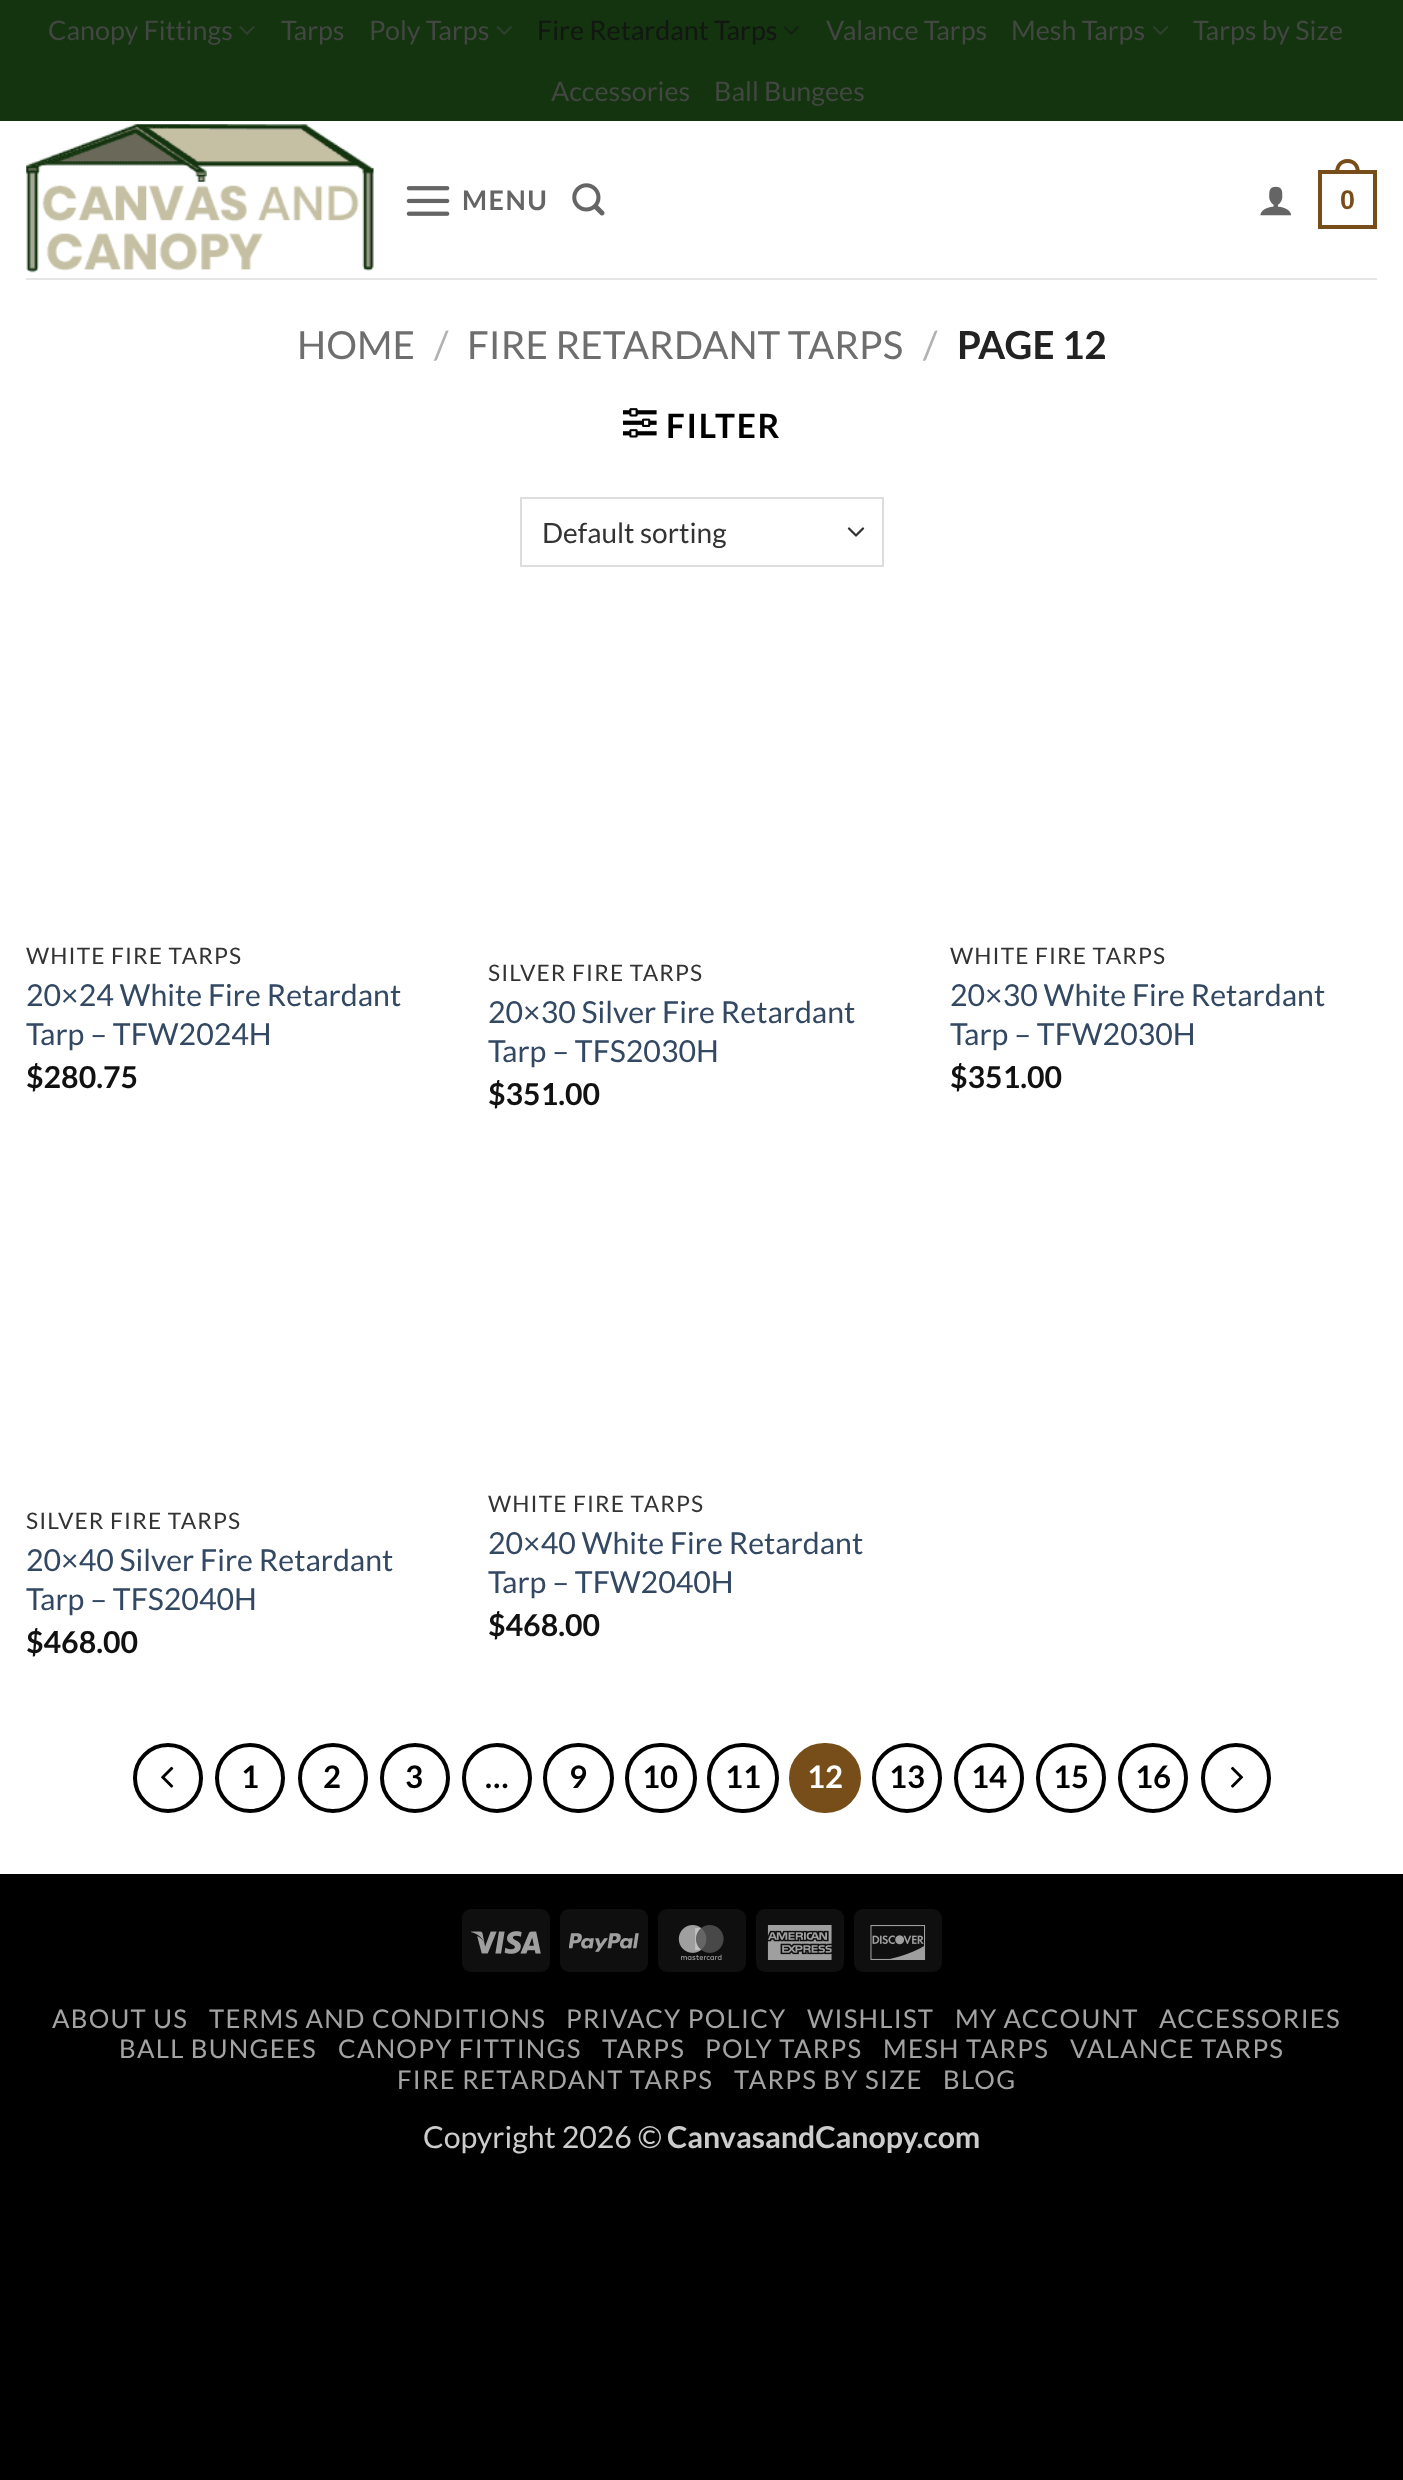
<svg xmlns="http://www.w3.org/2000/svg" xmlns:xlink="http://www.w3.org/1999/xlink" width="1403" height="2480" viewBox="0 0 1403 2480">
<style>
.cls-1{font:26.9px Lato;fill:#424741}
.cls-2{font:26.9px Lato;fill:#121712}
.cls-3{font:bold 26.9px Lato;letter-spacing:1.5px;fill:#656565}
.cls-4{font:bold 26.9px Liberation Sans;fill:#774e19}
.cls-5{font:38.6px Lato;fill:#6e6e6e}
.cls-6{font:38.6px Lato;fill:#b2b2b2}
.cls-7{font:bold 38.6px Lato;fill:#222222}
.cls-8{font:bold 33.5px Lato;letter-spacing:1.75px;fill:#000000}
.cls-9{font:28px Lato;fill:#333333}
.cls-10{font:22.75px Lato;letter-spacing:1.1px;fill:#333333}
.cls-11{font:30.25px Lato;fill:#334862}
.cls-12{font:bold 30.25px Lato;fill:#111111}
.cls-13{font:bold 31px Lato;fill:#000000}
.cls-14{font:bold 31px Lato;fill:#ffffff}
.cls-15{font:25.75px Lato;letter-spacing:1.25px;fill:#a3a3a3}
.cls-16{font:30.25px Lato;fill:#cccccc}
.cls-17{font:bold 30.25px Lato;fill:#cccccc}
</style>
<rect width="100%" height="100%" fill="#000000"/>
<rect fill="#ffffff" x="0" y="121" width="1403" height="1753"/>
<rect fill="#13340f" x="0" y="0" width="1403" height="121"/>
<image xlink:href="image0.png" x="239" y="26" width="16" height="9"/>
<image xlink:href="image1.png" x="496" y="26" width="16" height="9"/>
<image xlink:href="image2.png" x="783" y="26" width="16" height="9"/>
<image xlink:href="image3.png" x="1152" y="26" width="17" height="9"/>
<image xlink:href="image4.png" x="26" y="124" width="348" height="149"/>
<image xlink:href="image5.png" x="406" y="186" width="44" height="30"/>
<image xlink:href="image6.png" x="572" y="183" width="33" height="33"/>
<image xlink:href="image7.png" x="1260" y="186" width="31" height="30"/>
<rect fill="none" stroke="#774e19" stroke-width="4" x="1320" y="172" width="55" height="55"/>
<path fill="#774e19" fill-rule="evenodd" d="M1347.5 159C1356 159 1360 165.5 1360 173H1335C1335 165.5 1339 159 1347.5 159ZM1347.5 163C1354 163 1356 167.5 1356 173H1339C1339 167.5 1341 163 1347.5 163Z"/>
<rect fill="#e6e6e6" x="26" y="278" width="1351" height="2"/>
<image xlink:href="image8.png" x="623" y="408" width="34" height="30"/>
<path fill="none" stroke="#333333" stroke-width="2.3" stroke-linecap="round" stroke-linejoin="round" d="M849 528.5L856 535.5L863 528.5"/>
<rect fill="none" stroke="#dddddd" stroke-width="2" x="521" y="498" width="362" height="68"/>
<circle fill="none" stroke="#000000" stroke-width="4" cx="168" cy="1778" r="33"/>
<image xlink:href="image9.png" x="161" y="1766" width="13" height="22"/>
<circle fill="none" stroke="#000000" stroke-width="4" cx="250" cy="1778" r="33"/>
<circle fill="none" stroke="#000000" stroke-width="4" cx="333" cy="1778" r="33"/>
<circle fill="none" stroke="#000000" stroke-width="4" cx="415" cy="1778" r="33"/>
<circle fill="none" stroke="#000000" stroke-width="4" cx="497" cy="1778" r="33"/>
<rect fill="none" stroke="#000000" stroke-width="4" x="545" y="1745" width="67" height="66" rx="33"/>
<rect fill="none" stroke="#000000" stroke-width="4" x="627" y="1745" width="68" height="66" rx="33"/>
<rect fill="none" stroke="#000000" stroke-width="4" x="709" y="1745" width="68" height="66" rx="33"/>
<rect fill="#774e19" stroke="#774e19" stroke-width="4" x="791" y="1745" width="68" height="66" rx="33"/>
<circle fill="none" stroke="#000000" stroke-width="4" cx="907" cy="1778" r="33"/>
<circle fill="none" stroke="#000000" stroke-width="4" cx="989" cy="1778" r="33"/>
<circle fill="none" stroke="#000000" stroke-width="4" cx="1071" cy="1778" r="33"/>
<circle fill="none" stroke="#000000" stroke-width="4" cx="1153" cy="1778" r="33"/>
<circle fill="none" stroke="#000000" stroke-width="4" cx="1236" cy="1778" r="33"/>
<image xlink:href="image10.png" x="1230" y="1766" width="14" height="22"/>
<rect fill="#0f0f0f" x="462" y="1909" width="88" height="63" rx="9"/>
<image xlink:href="image11.png" x="471" y="1931" width="70" height="23"/>
<rect fill="#0f0f0f" x="560" y="1909" width="88" height="63" rx="9"/>
<image xlink:href="image12.png" x="569" y="1933" width="70" height="19"/>
<rect fill="#0f0f0f" x="658" y="1909" width="88" height="63" rx="9"/>
<image xlink:href="image13.png" x="678" y="1925" width="46" height="35"/>
<rect fill="#0f0f0f" x="756" y="1909" width="88" height="63" rx="9"/>
<image xlink:href="image14.png" x="767" y="1925" width="65" height="35"/>
<rect fill="#0f0f0f" x="854" y="1909" width="88" height="63" rx="9"/>
<image xlink:href="image15.png" x="870" y="1925" width="56" height="35"/>
<text class="cls-1" x="48" y="40">Canopy Fittings</text>
<text class="cls-1" x="281" y="40">Tarps</text>
<text class="cls-1" x="369" y="40">Poly Tarps</text>
<text class="cls-2" x="537" y="40">Fire Retardant Tarps</text>
<text class="cls-1" x="826" y="40">Valance Tarps</text>
<text class="cls-1" x="1011" y="40">Mesh Tarps</text>
<text class="cls-1" x="1193" y="40">Tarps by Size</text>
<text class="cls-1" x="551" y="101">Accessories</text>
<text class="cls-1" x="714" y="101">Ball Bungees</text>
<text class="cls-3" x="462" y="210">MENU</text>
<text class="cls-4" x="1340" y="209">0</text>
<text class="cls-5" x="297" y="359">HOME</text>
<text class="cls-6" x="434" y="359">/</text>
<text class="cls-5" x="467" y="359">FIRE RETARDANT TARPS</text>
<text class="cls-6" x="923" y="359">/</text>
<text class="cls-7" x="957" y="359">PAGE 12</text>
<text class="cls-8" x="666" y="438">FILTER</text>
<text class="cls-9" x="542" y="543">Default sorting</text>
<text class="cls-10" x="26" y="964">WHITE FIRE TARPS</text>
<text class="cls-11"><tspan x="26" y="1006">20×24 White Fire Retardant</tspan><tspan x="26" y="1045">Tarp – TFW2024H</tspan></text>
<text class="cls-12" x="26" y="1088">$280.75</text>
<text class="cls-10" x="488" y="981">SILVER FIRE TARPS</text>
<text class="cls-11"><tspan x="488" y="1023">20×30 Silver Fire Retardant</tspan><tspan x="488" y="1062">Tarp – TFS2030H</tspan></text>
<text class="cls-12" x="488" y="1105">$351.00</text>
<text class="cls-10" x="950" y="964">WHITE FIRE TARPS</text>
<text class="cls-11"><tspan x="950" y="1006">20×30 White Fire Retardant</tspan><tspan x="950" y="1045">Tarp – TFW2030H</tspan></text>
<text class="cls-12" x="950" y="1088">$351.00</text>
<text class="cls-10" x="26" y="1529">SILVER FIRE TARPS</text>
<text class="cls-11"><tspan x="26" y="1571">20×40 Silver Fire Retardant</tspan><tspan x="26" y="1610">Tarp – TFS2040H</tspan></text>
<text class="cls-12" x="26" y="1653">$468.00</text>
<text class="cls-10" x="488" y="1512">WHITE FIRE TARPS</text>
<text class="cls-11"><tspan x="488" y="1554">20×40 White Fire Retardant</tspan><tspan x="488" y="1593">Tarp – TFW2040H</tspan></text>
<text class="cls-12" x="488" y="1636">$468.00</text>
<text class="cls-13" x="241" y="1788">1</text>
<text class="cls-13" x="323" y="1788">2</text>
<text class="cls-13" x="405" y="1788">3</text>
<text class="cls-13" x="485" y="1788">…</text>
<text class="cls-13" x="569" y="1788">9</text>
<text class="cls-13" x="642" y="1788">10</text>
<text class="cls-13" x="725" y="1788">11</text>
<text class="cls-14" x="807" y="1788">12</text>
<text class="cls-13" x="889" y="1788">13</text>
<text class="cls-13" x="971" y="1788">14</text>
<text class="cls-13" x="1053" y="1788">15</text>
<text class="cls-13" x="1135" y="1788">16</text>
<text class="cls-15" x="52" y="2028">ABOUT US</text>
<text class="cls-15" x="209" y="2028">TERMS AND CONDITIONS</text>
<text class="cls-15" x="566" y="2028">PRIVACY POLICY</text>
<text class="cls-15" x="807" y="2028">WISHLIST</text>
<text class="cls-15" x="955" y="2028">MY ACCOUNT</text>
<text class="cls-15" x="1159" y="2028">ACCESSORIES</text>
<text class="cls-15" x="119" y="2058">BALL BUNGEES</text>
<text class="cls-15" x="338" y="2058">CANOPY FITTINGS</text>
<text class="cls-15" x="602" y="2058">TARPS</text>
<text class="cls-15" x="705" y="2058">POLY TARPS</text>
<text class="cls-15" x="883" y="2058">MESH TARPS</text>
<text class="cls-15" x="1070" y="2058">VALANCE TARPS</text>
<text class="cls-15" x="397" y="2089">FIRE RETARDANT TARPS</text>
<text class="cls-15" x="734" y="2089">TARPS BY SIZE</text>
<text class="cls-15" x="943" y="2089">BLOG</text>
<text class="cls-16" x="423" y="2148">Copyright 2026 ©</text>
<text class="cls-17" x="667" y="2148">CanvasandCanopy.com</text>
</svg>
